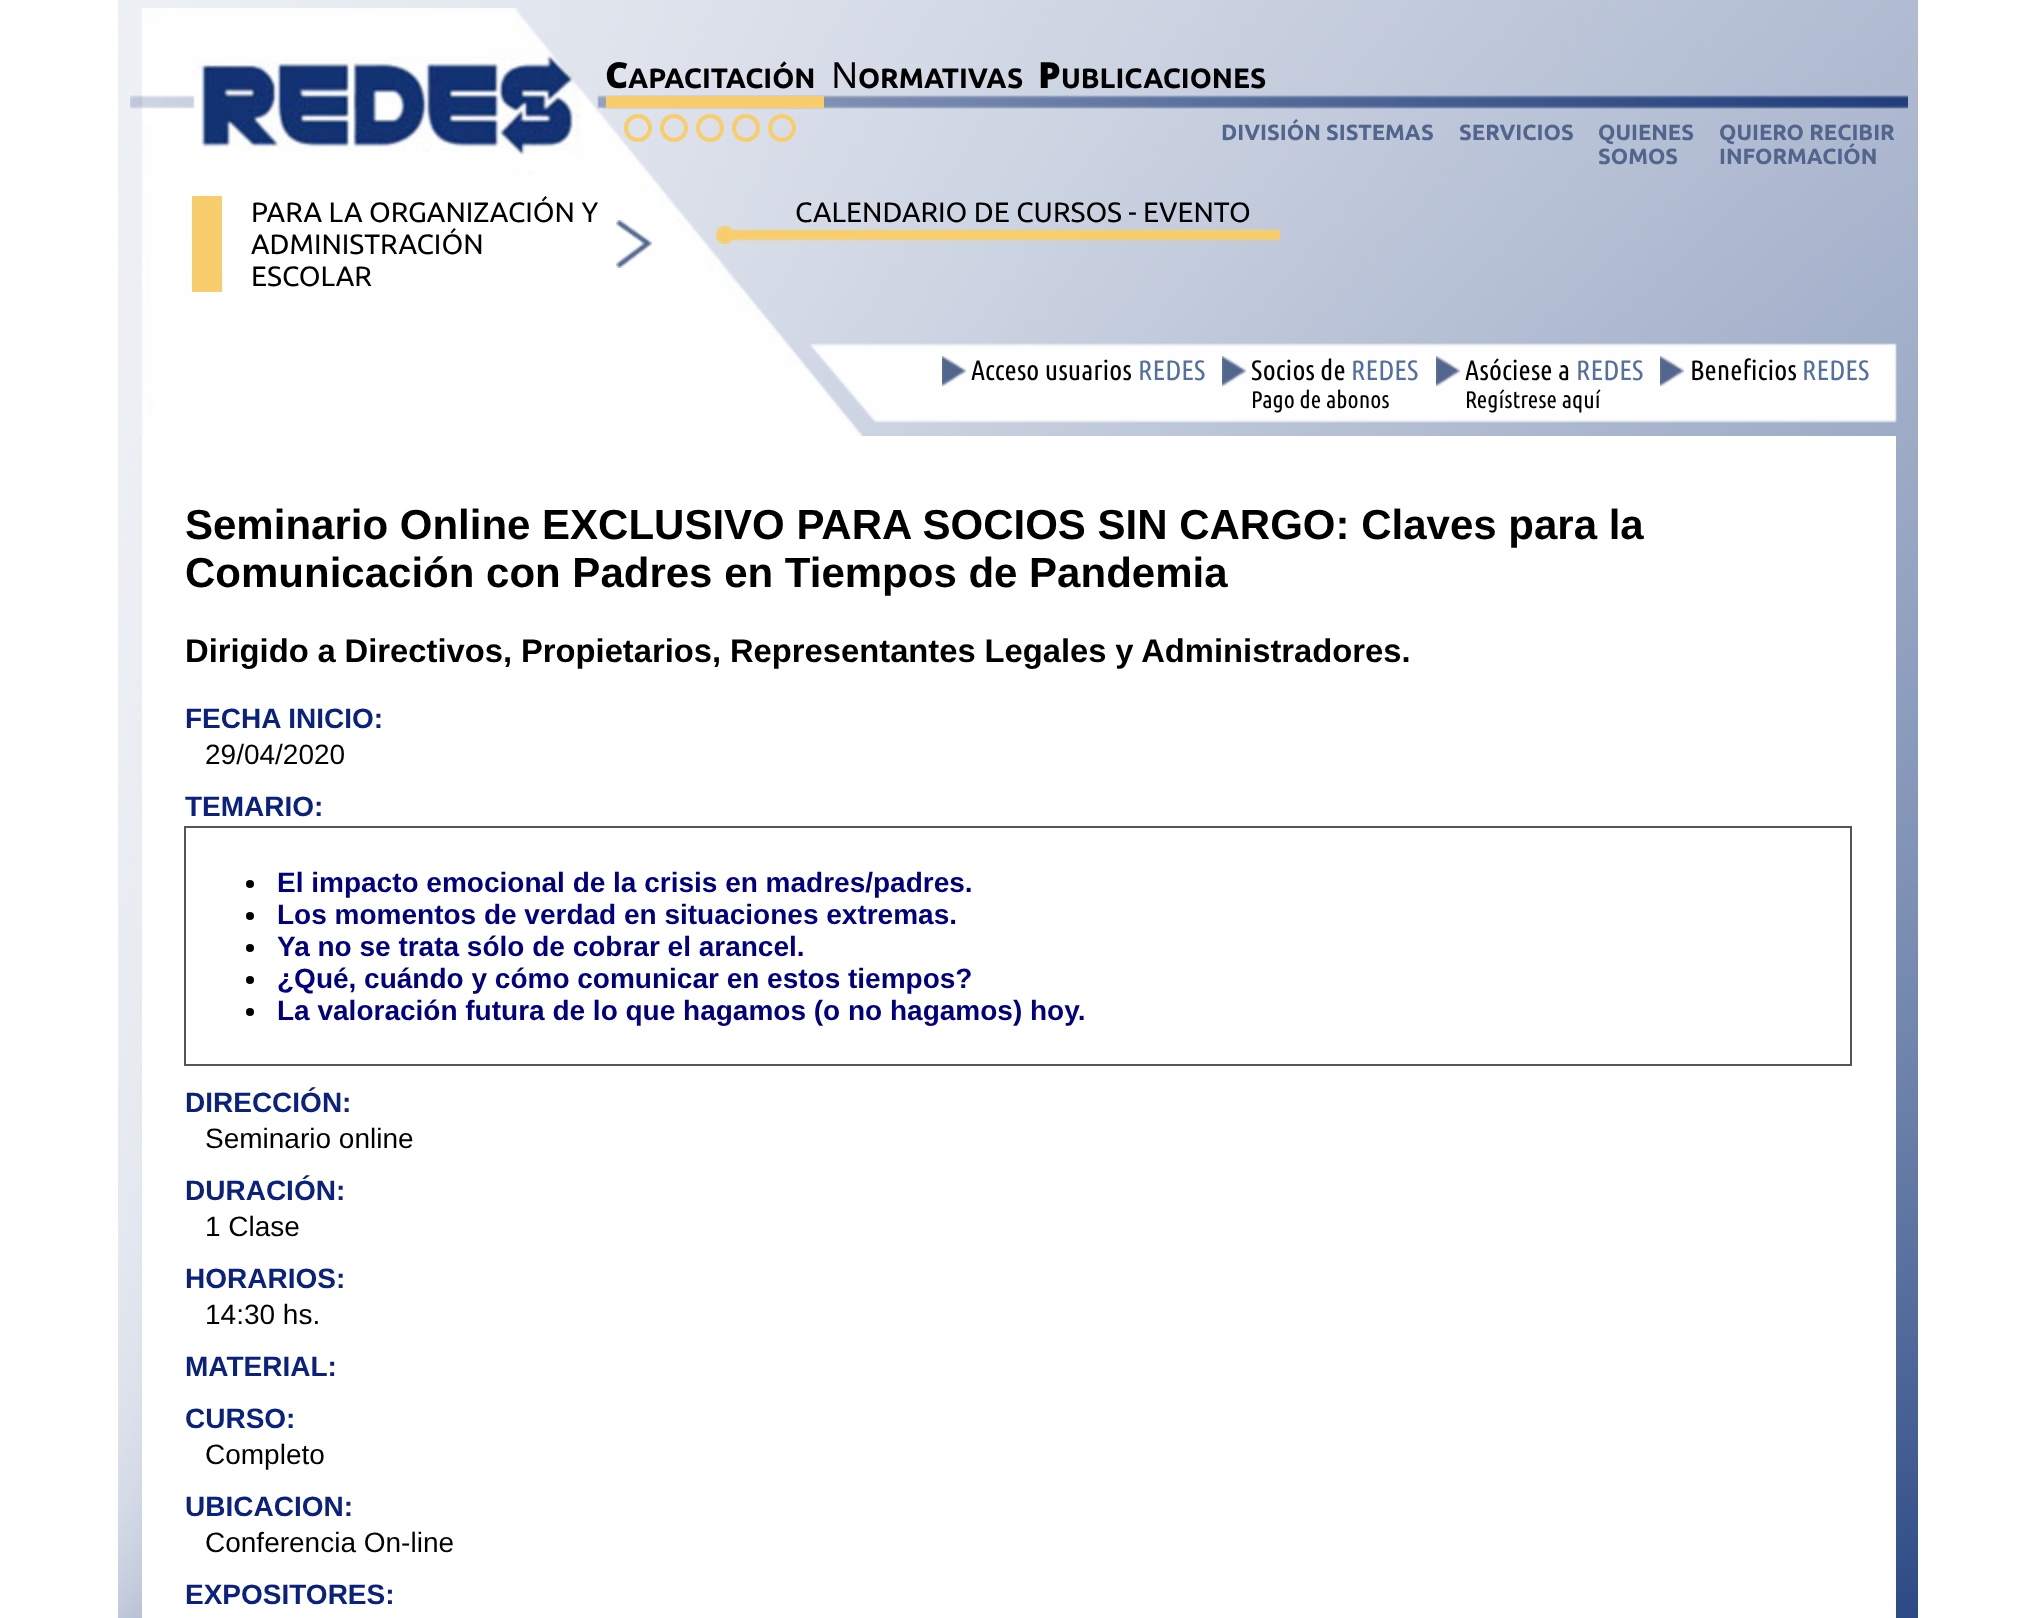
<svg xmlns="http://www.w3.org/2000/svg" xmlns:xlink="http://www.w3.org/1999/xlink" width="2036" height="1618" viewBox="0 0 2036 1618">
<style>
.cls-1{font:900 36px Noto Sans;fill:#000000}
.cls-2{font:bold 28px Ubuntu;fill:#000000}
.cls-3{font:36px Noto Sans;fill:#000000}
.cls-4{font:bold 22px Ubuntu;fill:#52658c}
.cls-5{font:28px Ubuntu;fill:#000000}
.cls-6{font:28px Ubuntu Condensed;fill:#000000}
.cls-7{font:28px Ubuntu Condensed;fill:#55709f}
.cls-8{font:24px Ubuntu Condensed;fill:#000000}
.cls-9{font:bold 42px Liberation Sans;fill:#000000}
.cls-10{font:bold 32.75px Liberation Sans;fill:#000000}
.cls-11{font:bold 28px Liberation Sans;fill:#0a217e}
.cls-12{font:28px Liberation Sans;fill:#000000}
.cls-13{font:bold 28px Liberation Sans;fill:#000080}
</style>
<rect width="100%" height="100%" fill="#ffffff"/>
<image xlink:href="image0.png" x="118" y="0" width="1800" height="1618"/>
<image xlink:href="image1.png" x="130" y="8" width="1778" height="428"/>
<image xlink:href="image2.png" x="200" y="55" width="380" height="100"/>
<rect fill="#f8ce6c" x="606" y="96" width="218" height="12"/>
<circle fill="none" stroke="#f8ce6c" stroke-width="4" cx="638" cy="128" r="12"/>
<circle fill="none" stroke="#f8ce6c" stroke-width="4" cx="674" cy="128" r="12"/>
<circle fill="none" stroke="#f8ce6c" stroke-width="4" cx="710" cy="128" r="12"/>
<circle fill="none" stroke="#f8ce6c" stroke-width="4" cx="746" cy="128" r="12"/>
<circle fill="none" stroke="#f8ce6c" stroke-width="4" cx="782" cy="128" r="12"/>
<image xlink:href="image3.png" x="616" y="220" width="36" height="48"/>
<rect fill="#f8ce6c" x="192" y="196" width="30" height="96"/>
<image xlink:href="image4.png" x="716" y="226" width="564" height="18"/>
<image xlink:href="image5.png" x="942" y="356" width="24" height="30"/>
<image xlink:href="image5.png" x="1222" y="356" width="24" height="30"/>
<image xlink:href="image5.png" x="1436" y="356" width="24" height="30"/>
<image xlink:href="image5.png" x="1660" y="356" width="24" height="30"/>
<rect fill="#ffffff" x="142" y="436" width="1754" height="1182"/>
<rect fill="none" stroke="#555555" stroke-width="2" x="185" y="827" width="1666" height="238"/>
<circle fill="#000000" cx="250" cy="884" r="4"/>
<circle fill="#000000" cx="250" cy="916" r="4"/>
<circle fill="#000000" cx="250" cy="948" r="4"/>
<circle fill="#000000" cx="250" cy="980" r="4"/>
<circle fill="#000000" cx="250" cy="1012" r="4"/>
<text class="cls-1" x="605" y="88">C</text>
<text class="cls-2" x="628" y="88">APACITACIÓN</text>
<text class="cls-3" x="831" y="88">N</text>
<text class="cls-2" x="858" y="88">ORMATIVAS</text>
<text class="cls-1" x="1038" y="88">P</text>
<text class="cls-2" x="1061" y="88">UBLICACIONES</text>
<text class="cls-4" x="1221" y="140">DIVISIÓN SISTEMAS</text>
<text class="cls-4" x="1459" y="140">SERVICIOS</text>
<text class="cls-4"><tspan x="1598" y="140">QUIENES</tspan><tspan x="1598" y="164">SOMOS</tspan></text>
<text class="cls-4"><tspan x="1719" y="140">QUIERO RECIBIR</tspan><tspan x="1719" y="164">INFORMACIÓN</tspan></text>
<text class="cls-5"><tspan x="251" y="222">PARA LA ORGANIZACIÓN Y</tspan><tspan x="251" y="254">ADMINISTRACIÓN</tspan><tspan x="251" y="286">ESCOLAR</tspan></text>
<text class="cls-5" x="795" y="222">CALENDARIO DE CURSOS - EVENTO</text>
<text class="cls-6" x="971" y="380">Acceso usuarios</text>
<text class="cls-7" x="1138" y="380">REDES</text>
<text class="cls-6" x="1251" y="380">Socios de</text>
<text class="cls-7" x="1351" y="380">REDES</text>
<text class="cls-8" x="1251" y="408">Pago de abonos</text>
<text class="cls-6" x="1465" y="380">Asóciese a</text>
<text class="cls-7" x="1576" y="380">REDES</text>
<text class="cls-8" x="1465" y="408">Regístrese aquí</text>
<text class="cls-6" x="1690" y="380">Beneficios</text>
<text class="cls-7" x="1802" y="380">REDES</text>
<text class="cls-9"><tspan x="185" y="539">Seminario Online EXCLUSIVO PARA SOCIOS SIN CARGO: Claves para la</tspan><tspan x="185" y="587">Comunicación con Padres en Tiempos de Pandemia</tspan></text>
<text class="cls-10" x="185" y="662" word-spacing="-0.25">Dirigido a Directivos, Propietarios, Representantes Legales y Administradores.</text>
<text class="cls-11" x="185" y="728">FECHA INICIO:</text>
<text class="cls-12" x="205" y="764">29/04/2020</text>
<text class="cls-11" x="185" y="816">TEMARIO:</text>
<text class="cls-13"><tspan x="277" y="892">El impacto emocional de la crisis en madres/padres.</tspan><tspan x="277" y="924">Los momentos de verdad en situaciones extremas.</tspan><tspan x="277" y="956">Ya no se trata sólo de cobrar el arancel.</tspan><tspan x="277" y="988">¿Qué, cuándo y cómo comunicar en estos tiempos?</tspan><tspan x="277" y="1020">La valoración futura de lo que hagamos (o no hagamos) hoy.</tspan></text>
<text class="cls-11" x="185" y="1112">DIRECCIÓN:</text>
<text class="cls-12" x="205" y="1148">Seminario online</text>
<text class="cls-11" x="185" y="1200">DURACIÓN:</text>
<text class="cls-12" x="205" y="1236">1 Clase</text>
<text class="cls-11" x="185" y="1288">HORARIOS:</text>
<text class="cls-12" x="205" y="1324">14:30 hs.</text>
<text class="cls-11"><tspan x="185" y="1376">MATERIAL:</tspan><tspan x="185" y="1428">CURSO:</tspan></text>
<text class="cls-12" x="205" y="1464">Completo</text>
<text class="cls-11" x="185" y="1516">UBICACION:</text>
<text class="cls-12" x="205" y="1552">Conferencia On-line</text>
<text class="cls-11" x="185" y="1604">EXPOSITORES:</text>
</svg>
